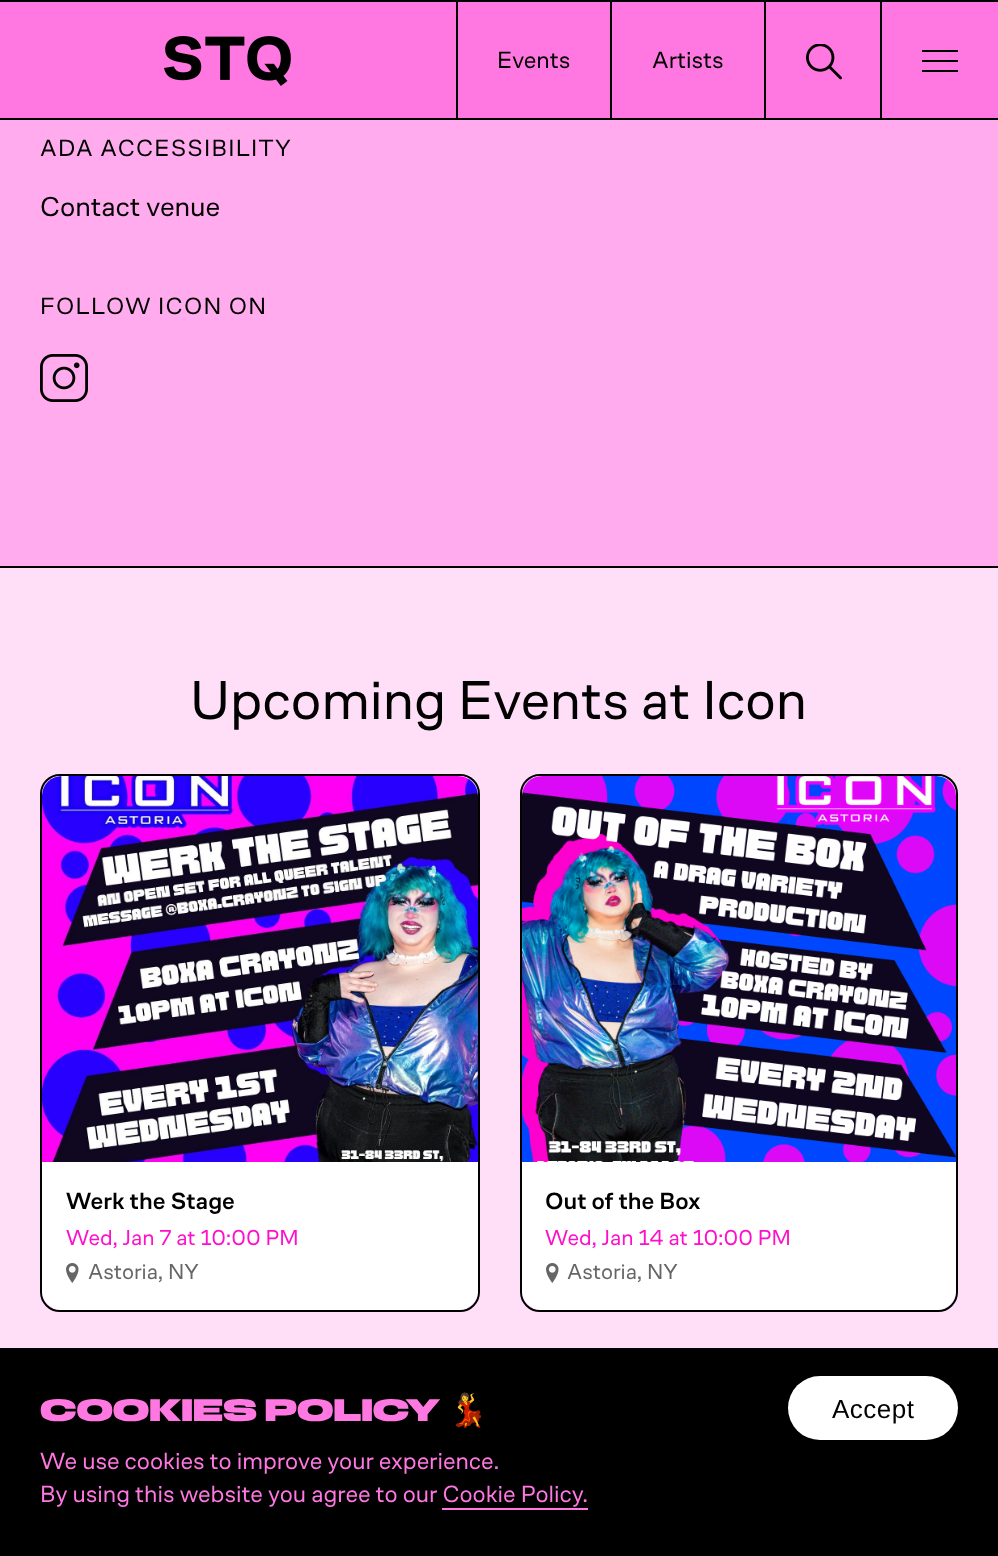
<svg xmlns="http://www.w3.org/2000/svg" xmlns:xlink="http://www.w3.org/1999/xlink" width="998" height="1556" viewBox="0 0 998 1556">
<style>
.cls-1{font:24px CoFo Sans;fill:#000000}
.cls-2{font:24px CoFo Sans;letter-spacing:1.25px;fill:#000000}
.cls-3{font:28px CoFo Sans;fill:#000000}
.cls-4{font:56px CoFo Sans;fill:#000000}
.cls-5{font:500 24px CoFo Sans;fill:#000000}
.cls-6{font:22px CoFo Sans;fill:#ff0fca}
.cls-7{font:22px CoFo Sans;fill:#666666}
.cls-8{font:italic 900 32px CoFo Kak;fill:#ff77e1}
.cls-9{font:bold 32px Noto Color Emoji;fill:#ff77e1}
.cls-10{font:24px CoFo Sans;fill:#ff77e1}
.cls-11{font:26px Liberation Sans;letter-spacing:0.5px;fill:#000000}
</style>
<defs>
<clipPath id="clip1"><rect x="42" y="776" width="436" height="534" rx="18"/></clipPath>
<clipPath id="clip2"><rect x="522" y="776" width="434" height="534" rx="18"/></clipPath>
</defs>
<rect width="100%" height="100%" fill="#ffabed"/>
<rect fill="#ff77e1" x="0" y="2" width="998" height="116"/>
<rect fill="#000000" x="0" y="0" width="998" height="2"/>
<rect fill="#000000" x="0" y="118" width="998" height="2"/>
<image xlink:href="image0.png" x="164" y="36" width="127" height="50"/>
<rect fill="#000000" x="764" y="2" width="2" height="116"/>
<rect fill="#000000" x="610" y="2" width="2" height="116"/>
<rect fill="#000000" x="456" y="2" width="2" height="116"/>
<rect fill="#000000" x="880" y="2" width="2" height="116"/>
<image xlink:href="image1.png" x="806" y="44" width="36" height="36"/>
<rect fill="#000000" x="922" y="50" width="36" height="2"/>
<rect fill="#000000" x="922" y="60" width="36" height="2"/>
<rect fill="#000000" x="922" y="70" width="36" height="2"/>
<rect fill="#000000" x="0" y="566" width="998" height="2"/>
<image xlink:href="image2.png" x="40" y="354" width="48" height="48"/>
<rect fill="#ffdef8" x="0" y="568" width="998" height="780"/>
<rect fill="none" stroke="#000000" stroke-width="2" x="41" y="775" width="438" height="536" rx="19"/>
<image xlink:href="image3.png" x="42" y="776" width="436" height="386"/>
<g clip-path="url(#clip1)">
<path fill="#ffffff" d="M42 1162H478V1290C478 1301 469 1310 458 1310H62C51 1310 42 1301 42 1290Z"/>
</g>
<image xlink:href="image4.png" x="66" y="1263" width="13" height="20"/>
<rect fill="none" stroke="#000000" stroke-width="2" x="521" y="775" width="436" height="536" rx="19"/>
<image xlink:href="image5.png" x="522" y="776" width="434" height="386"/>
<g clip-path="url(#clip2)">
<path fill="#ffffff" d="M522 1162H956V1290C956 1301 947 1310 936 1310H542C531 1310 522 1301 522 1290Z"/>
</g>
<image xlink:href="image4.png" x="546" y="1263" width="13" height="20"/>
<rect fill="#000000" x="0" y="1348" width="998" height="208"/>
<rect fill="#ff77e1" x="442" y="1508" width="146" height="2"/>
<rect fill="#ffffff" x="788" y="1376" width="170" height="64" rx="32"/>
<text class="cls-1" x="497" y="68">Events</text>
<text class="cls-1" x="652" y="68">Artists</text>
<text class="cls-2" x="40" y="156">ADA ACCESSIBILITY</text>
<text class="cls-3" x="40" y="216">Contact venue</text>
<text class="cls-2" x="40" y="314">FOLLOW ICON ON</text>
<text class="cls-4" x="190" y="719">Upcoming Events at Icon</text>
<text class="cls-5" x="66" y="1209">Werk the Stage</text>
<text class="cls-6" x="66" y="1245">Wed, Jan 7 at 10:00 PM</text>
<text class="cls-7" x="88" y="1279">Astoria, NY</text>
<text class="cls-5" x="545" y="1209">Out of the Box</text>
<text class="cls-6" x="545" y="1245">Wed, Jan 14 at 10:00 PM</text>
<text class="cls-7" x="567" y="1279">Astoria, NY</text>
<text class="cls-8" x="40" y="1421">COOKIES POLICY</text>
<text class="cls-9" x="448" y="1421">💃</text>
<text class="cls-10"><tspan x="40" y="1469">We use cookies to improve your experience.</tspan><tspan x="40" y="1502">By using this website you agree to our Cookie Policy.</tspan></text>
<text class="cls-11" x="832" y="1418">Accept</text>
</svg>
